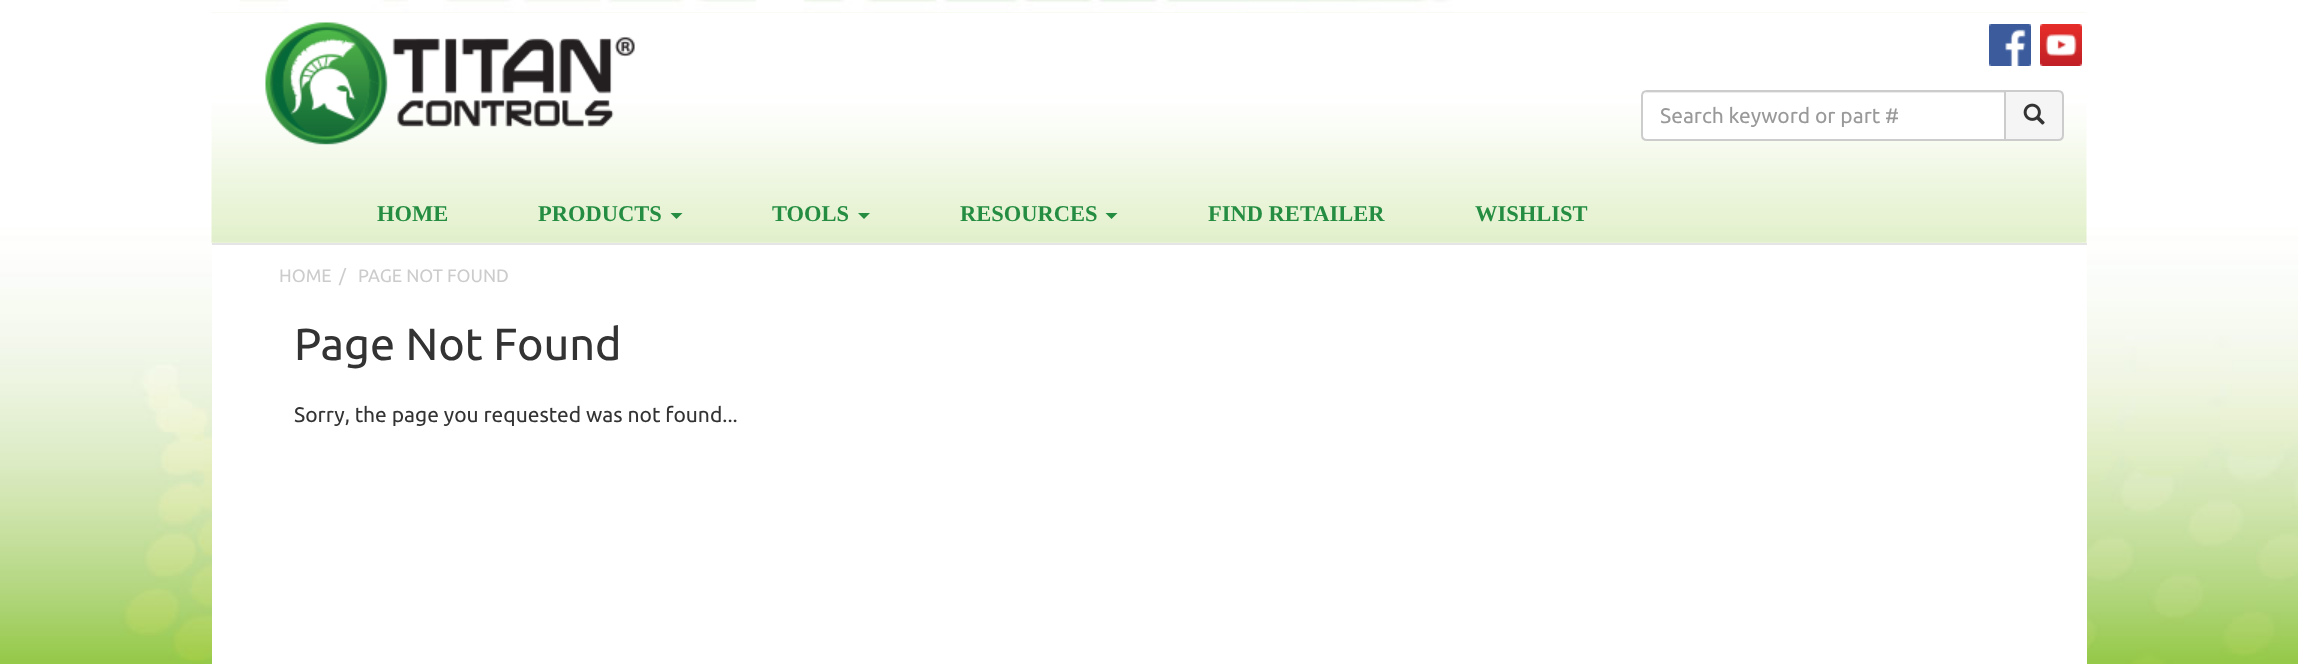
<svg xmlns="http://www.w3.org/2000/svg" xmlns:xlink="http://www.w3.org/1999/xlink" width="2298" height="664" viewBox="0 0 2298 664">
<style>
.cls-1{font:21px Ubuntu;fill:#999999}
.cls-2{font:bold 22.5px Liberation Serif;fill:#248d41}
.cls-3{font:18px Ubuntu;fill:#cccccc}
.cls-4{font:45px Ubuntu;fill:#333333}
.cls-5{font:21px Ubuntu;fill:#333333}
</style>
<defs>
<clipPath id="clip1"><rect x="1661" y="104" width="325" height="24"/></clipPath>
</defs>
<rect width="100%" height="100%" fill="#ffffff"/>
<image xlink:href="image0.png" x="0" y="0" width="2298" height="664"/>
<image xlink:href="image1.png" x="211" y="12" width="1876" height="232"/>
<rect fill="#e5e5e5" x="212" y="243" width="1875" height="2"/>
<image xlink:href="image2.png" x="265" y="22" width="370" height="123"/>
<image xlink:href="image3.png" x="1989" y="24" width="42" height="42"/>
<image xlink:href="image4.png" x="2040" y="24" width="42" height="42"/>
<path fill="#f5f5f5" stroke="#cccccc" stroke-width="2" d="M2005 91H2058C2061 91 2063 93 2063 96V135C2063 138 2061 140 2058 140H2005Z"/>
<path fill="#ffffff" d="M1647 90H2006V141H1647C1643.5 141 1641 138.5 1641 135V96C1641 92.5 1643.5 90 1647 90Z"/>
<path fill="#ececec" d="M1647 93H2004V92H1648C1646 92 1645 93 1644 94Z"/>
<path fill="none" stroke="#cccccc" stroke-width="2" d="M1647 91H2005V140H1647C1644 140 1642 138 1642 135V96C1642 93 1644 91 1647 91Z"/>
<image xlink:href="image5.png" x="2023" y="103" width="22" height="22"/>
<path fill="#248d41" d="M670.5 213H682.5L676.5 219Z"/>
<path fill="#248d41" d="M858 213H870L864 219Z"/>
<path fill="#248d41" d="M1105.5 213H1117.5L1111.5 219Z"/>
<rect fill="#ffffff" x="212" y="245" width="1875" height="419"/>
<g clip-path="url(#clip1)">
<text class="cls-1" x="1660" y="123">Search keyword or part #</text>
</g>
<text class="cls-2" x="377" y="221">HOME</text>
<text class="cls-2" x="538" y="221">PRODUCTS</text>
<text class="cls-2" x="772" y="221">TOOLS</text>
<text class="cls-2" x="960" y="221">RESOURCES</text>
<text class="cls-2" x="1208" y="221">FIND RETAILER</text>
<text class="cls-2" x="1475" y="221">WISHLIST</text>
<text class="cls-3" x="279" y="282">HOME</text>
<text class="cls-3" x="339" y="282">/</text>
<text class="cls-3" x="358" y="282">PAGE NOT FOUND</text>
<text class="cls-4" x="294" y="360">Page Not Found</text>
<text class="cls-5" x="294" y="422">Sorry, the page you requested was not found...</text>
</svg>
